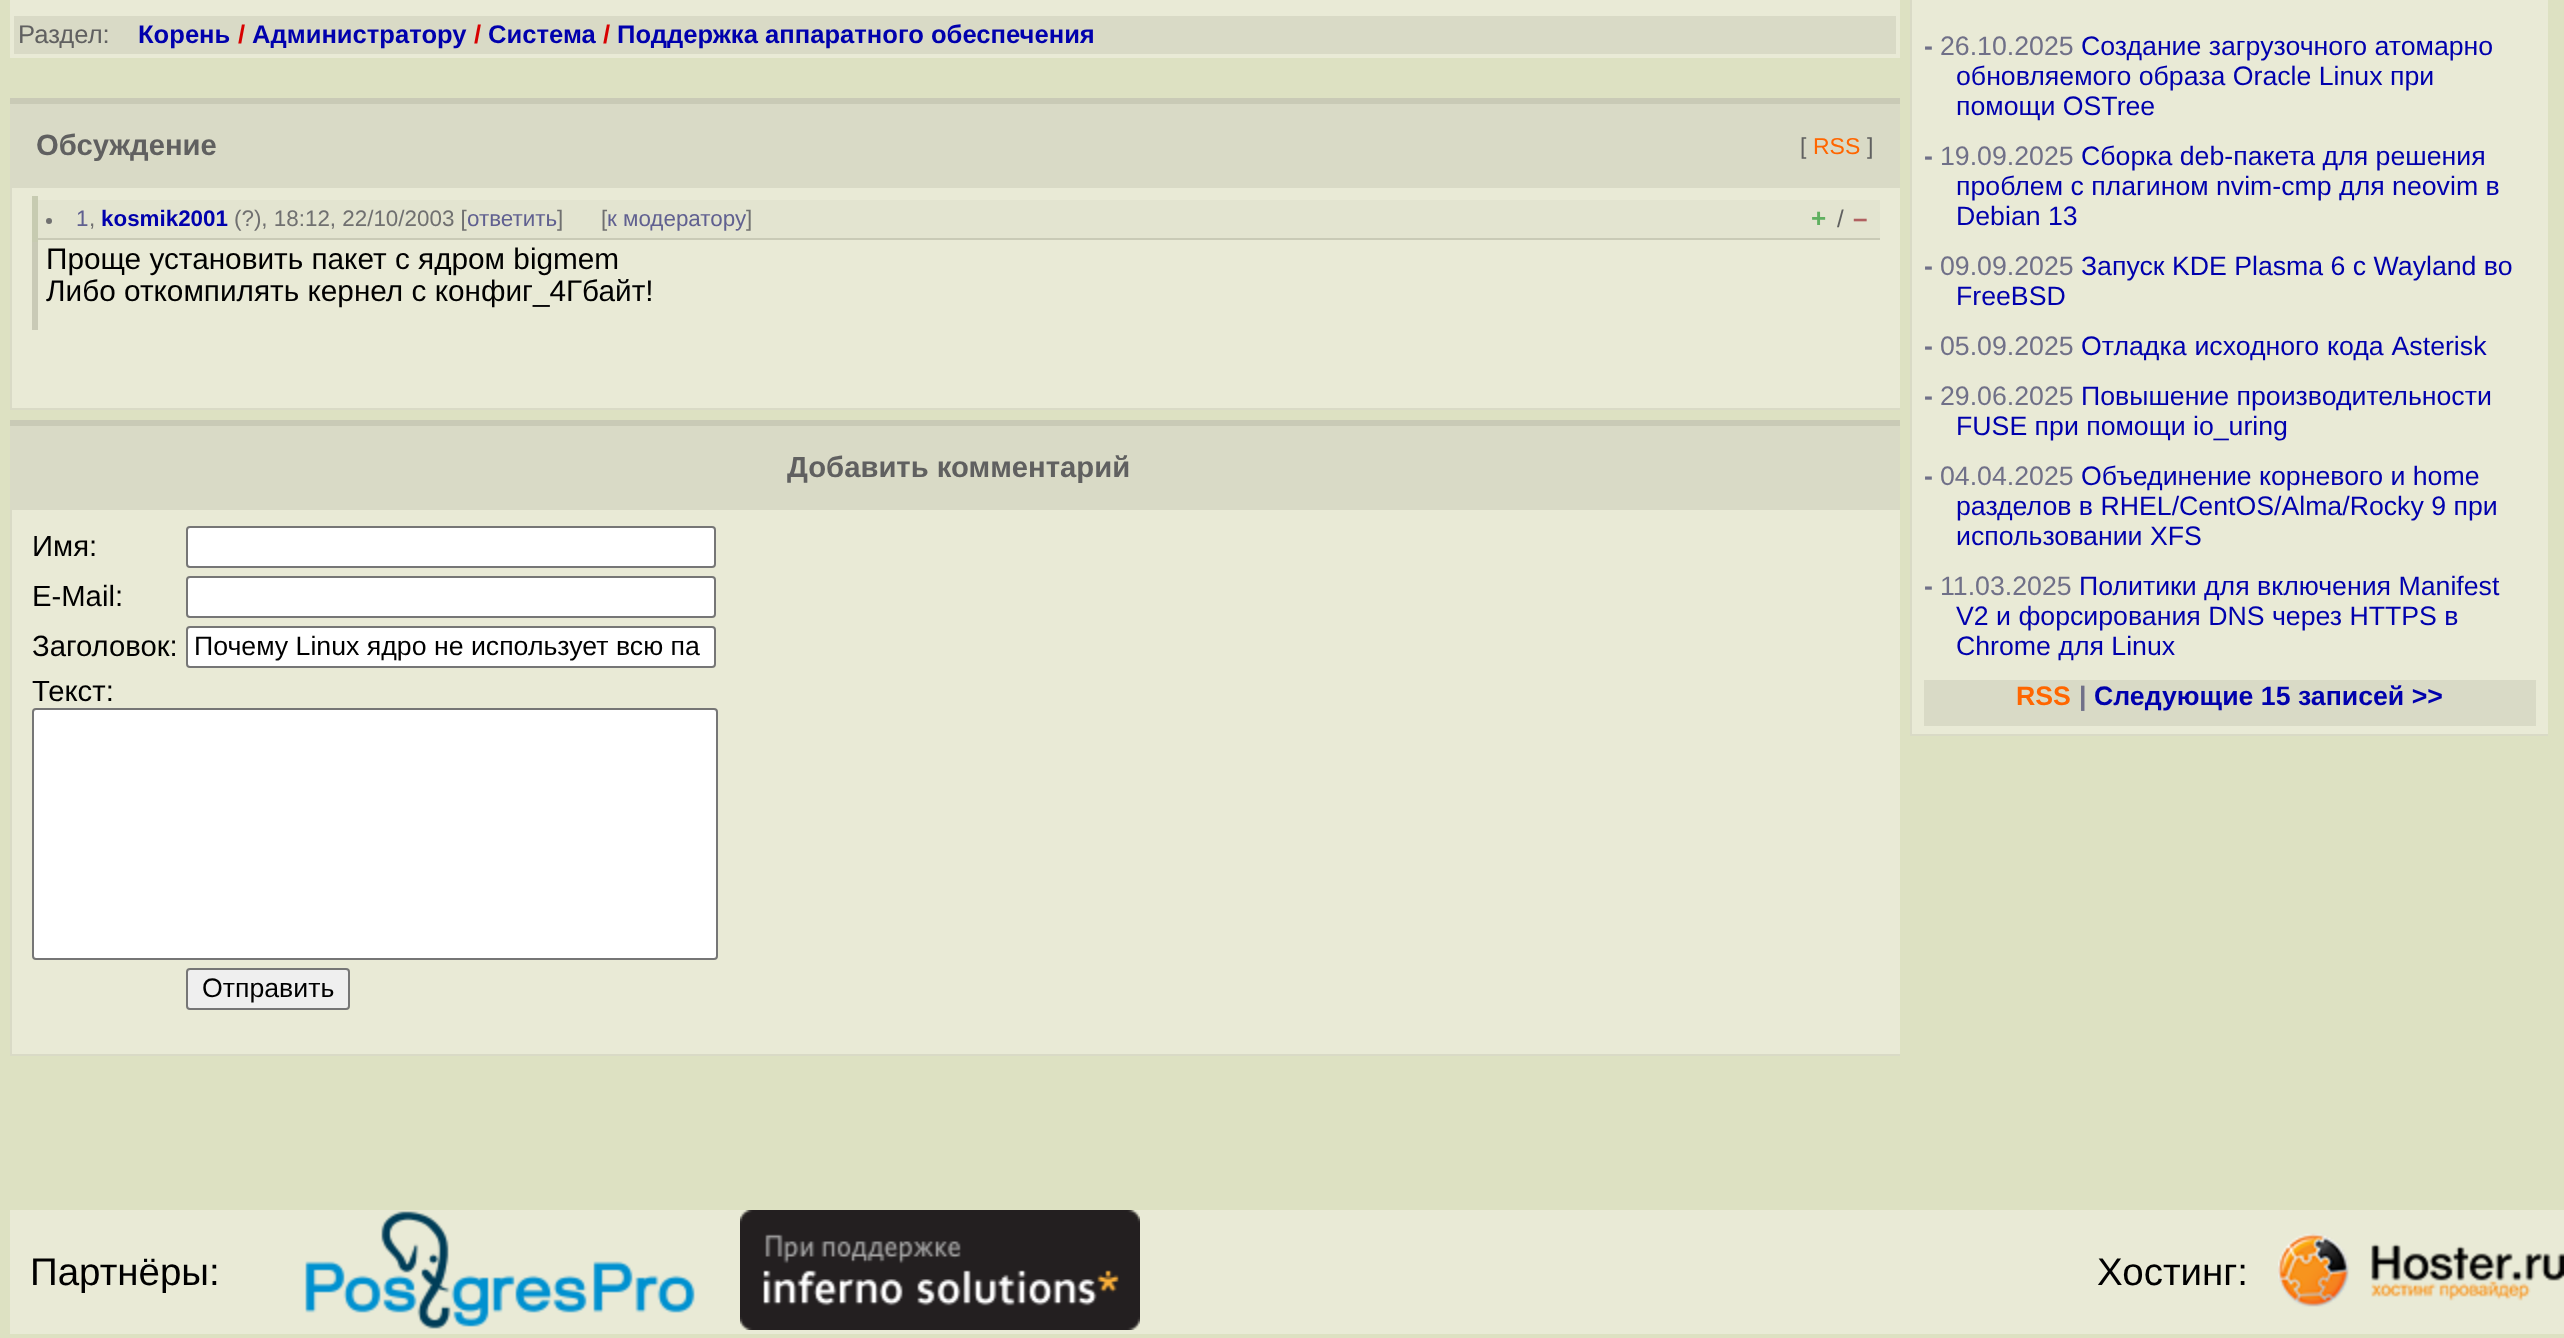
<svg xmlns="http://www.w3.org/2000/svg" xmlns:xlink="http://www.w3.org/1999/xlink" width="2564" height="1338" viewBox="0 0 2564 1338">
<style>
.cls-1{font:25.6px Liberation Sans;fill:#606060}
.cls-2{font:bold 25.6px Liberation Sans;fill:#0000ad}
.cls-3{font:bold 25.6px Liberation Sans;fill:#d80000}
.cls-4{font:bold 29.25px Liberation Sans;fill:#606060}
.cls-5{font:23px Liberation Sans;fill:#606060}
.cls-6{font:23px Liberation Sans;fill:#ff6600}
.cls-7{font:22.4px Liberation Sans;fill:#606090}
.cls-8{font:bold 22.4px Liberation Sans;fill:#0000ad}
.cls-9{font:22.4px Liberation Sans;fill:#707070}
.cls-10{font:bold 26px Liberation Sans;fill:#60b060}
.cls-11{font:24px Liberation Sans;fill:#606060}
.cls-12{font:bold 26px Liberation Sans;fill:#b06060}
.cls-13{font:29.75px Liberation Sans;fill:#000000}
.cls-14{font:29.25px Liberation Sans;fill:#000000}
.cls-15{font:26.7px Liberation Sans;fill:#000000}
.cls-16{font:bold 26.7px Liberation Sans;fill:#707088}
.cls-17{font:26.7px Liberation Sans;fill:#707088}
.cls-18{font:26.7px Liberation Sans;fill:#0000ad}
.cls-19{font:bold 26.7px Liberation Sans;fill:#ff6600}
.cls-20{font:bold 26.7px Liberation Sans;fill:#0000ad}
.cls-21{font:38.5px Liberation Sans;fill:#000000}
</style>
<rect width="100%" height="100%" fill="#dde1c2"/>
<rect fill="#e9ead6" x="10" y="0" width="1890" height="58"/>
<rect fill="#d9dac6" x="14" y="16" width="1882" height="38"/>
<rect fill="#d9dac6" x="10" y="104" width="1890" height="84"/>
<rect fill="#c9cab6" x="10" y="98" width="1890" height="6"/>
<rect fill="#e9ead6" x="12" y="188" width="1888" height="220"/>
<rect fill="#d9dac6" x="10" y="408" width="1890" height="2"/>
<rect fill="#d9dac6" x="10" y="188" width="2" height="222"/>
<rect fill="#e3e4d0" x="38" y="200" width="1842" height="38"/>
<rect fill="#c9cab6" x="34" y="238" width="1846" height="2"/>
<rect fill="#c9cab6" x="32" y="236" width="6" height="94"/>
<rect fill="#c7cbb1" x="32" y="196" width="6" height="46"/>
<circle fill="#707070" cx="49" cy="221" r="3"/>
<rect fill="#d9dac6" x="10" y="426" width="1890" height="84"/>
<rect fill="#c9cab6" x="10" y="420" width="1890" height="6"/>
<rect fill="#e9ead6" x="12" y="510" width="1888" height="544"/>
<rect fill="#d9dac6" x="10" y="1054" width="1890" height="2"/>
<rect fill="#d9dac6" x="10" y="510" width="2" height="546"/>
<rect fill="#ffffff" stroke="#767676" stroke-width="2" x="187" y="527" width="528" height="40" rx="3"/>
<rect fill="#ffffff" stroke="#767676" stroke-width="2" x="187" y="577" width="528" height="40" rx="3"/>
<rect fill="#ffffff" stroke="#767676" stroke-width="2" x="187" y="627" width="528" height="40" rx="3"/>
<rect fill="#ffffff" stroke="#767676" stroke-width="2" x="33" y="709" width="684" height="250" rx="3"/>
<rect fill="#efefef" stroke="#767676" stroke-width="2" x="187" y="969" width="162" height="40" rx="3"/>
<rect fill="#e9ead6" x="1912" y="0" width="636" height="734"/>
<rect fill="#d9dac6" x="1910" y="734" width="638" height="2"/>
<rect fill="#d9dac6" x="1910" y="0" width="2" height="736"/>
<rect fill="#d9dac6" x="1924" y="680" width="612" height="46"/>
<rect fill="#e9ead6" x="10" y="1210" width="2554" height="124"/>
<image xlink:href="image0.png" x="305" y="1211" width="390" height="118"/>
<image xlink:href="image1.png" x="740" y="1210" width="400" height="120"/>
<image xlink:href="image2.png" x="2278" y="1233" width="286" height="74"/>
<text class="cls-1" x="18" y="43">Раздел:</text>
<text class="cls-2" x="138" y="43">Корень</text>
<text class="cls-3" x="238" y="43">/</text>
<text class="cls-2" x="252" y="43">Администратору</text>
<text class="cls-3" x="474" y="43">/</text>
<text class="cls-2" x="488" y="43">Система</text>
<text class="cls-3" x="603" y="43">/</text>
<text class="cls-2" x="617" y="43">Поддержка аппаратного обеспечения</text>
<text class="cls-4" x="36" y="155">Обсуждение</text>
<text class="cls-5" x="1800" y="154">[</text>
<text class="cls-6" x="1813" y="154">RSS</text>
<text class="cls-5" x="1867" y="154">]</text>
<text class="cls-7" x="76" y="226">1</text>
<text class="cls-8" x="101" y="226">kosmik2001</text>
<text class="cls-9" x="234" y="226">(?), 18:12, 22/10/2003 [</text>
<text class="cls-7" x="467" y="226">ответить</text>
<text class="cls-9" x="557" y="226">]</text>
<text class="cls-9" x="601" y="226">[</text>
<text class="cls-7" x="607" y="226">к модератору</text>
<text class="cls-9" x="746" y="226">]</text>
<text class="cls-9" x="89" y="226">,</text>
<text class="cls-10" x="1811" y="227">+</text>
<text class="cls-11" x="1837" y="227">/</text>
<text class="cls-12" x="1853" y="227">–</text>
<text class="cls-13"><tspan x="46" y="269">Проще установить пакет с ядром bigmem</tspan><tspan x="46" y="301">Либо откомпилять кернел с конфиг_4Гбайт!</tspan></text>
<text class="cls-4" x="787" y="477">Добавить комментарий</text>
<text class="cls-14"><tspan x="32" y="556">Имя:</tspan><tspan x="32" y="606">E-Mail:</tspan><tspan x="32" y="656">Заголовок:</tspan></text>
<text class="cls-15" x="194" y="655">Почему Linux ядро не использует всю па</text>
<text class="cls-14" x="32" y="701">Текст:</text>
<text class="cls-15" x="202" y="997">Отправить</text>
<text class="cls-16" x="1924" y="55">-</text>
<text class="cls-17" x="1940" y="55">26.10.2025</text>
<text class="cls-18" x="2081" y="55">Создание загрузочного атомарно</text>
<text class="cls-18"><tspan x="1956" y="85">обновляемого образа Oracle Linux при</tspan><tspan x="1956" y="115">помощи OSTree</tspan></text>
<text class="cls-16" x="1924" y="165">-</text>
<text class="cls-17" x="1940" y="165">19.09.2025</text>
<text class="cls-18" x="2081" y="165">Сборка deb-пакета для решения</text>
<text class="cls-18"><tspan x="1956" y="195">проблем с плагином nvim-cmp для neovim в</tspan><tspan x="1956" y="225">Debian 13</tspan></text>
<text class="cls-16" x="1924" y="275">-</text>
<text class="cls-17" x="1940" y="275">09.09.2025</text>
<text class="cls-18" x="2081" y="275">Запуск KDE Plasma 6 с Wayland во</text>
<text class="cls-18" x="1956" y="305">FreeBSD</text>
<text class="cls-16" x="1924" y="355">-</text>
<text class="cls-17" x="1940" y="355">05.09.2025</text>
<text class="cls-18" x="2081" y="355" word-spacing="0.5">Отладка исходного кода Asterisk</text>
<text class="cls-16" x="1924" y="405">-</text>
<text class="cls-17" x="1940" y="405">29.06.2025</text>
<text class="cls-18" x="2081" y="405">Повышение производительности</text>
<text class="cls-18" x="1956" y="435">FUSE при помощи io_uring</text>
<text class="cls-16" x="1924" y="485">-</text>
<text class="cls-17" x="1940" y="485">04.04.2025</text>
<text class="cls-18" x="2081" y="485">Объединение корневого и home</text>
<text class="cls-18"><tspan x="1956" y="515">разделов в RHEL/CentOS/Alma/Rocky 9 при</tspan><tspan x="1956" y="545">использовании XFS</tspan></text>
<text class="cls-16" x="1924" y="595">-</text>
<text class="cls-17" x="1940" y="595">11.03.2025</text>
<text class="cls-18" x="2079" y="595">Политики для включения Manifest</text>
<text class="cls-18"><tspan x="1956" y="625">V2 и форсирования DNS через HTTPS в</tspan><tspan x="1956" y="655">Chrome для Linux</tspan></text>
<text class="cls-19" x="2016" y="705">RSS</text>
<text class="cls-16" x="2079" y="705">|</text>
<text class="cls-20" x="2094" y="705">Следующие 15 записей &gt;&gt;</text>
<text class="cls-21" x="30" y="1285">Партнёры:</text>
<text class="cls-21" x="2097" y="1285">Хостинг:</text>
</svg>
